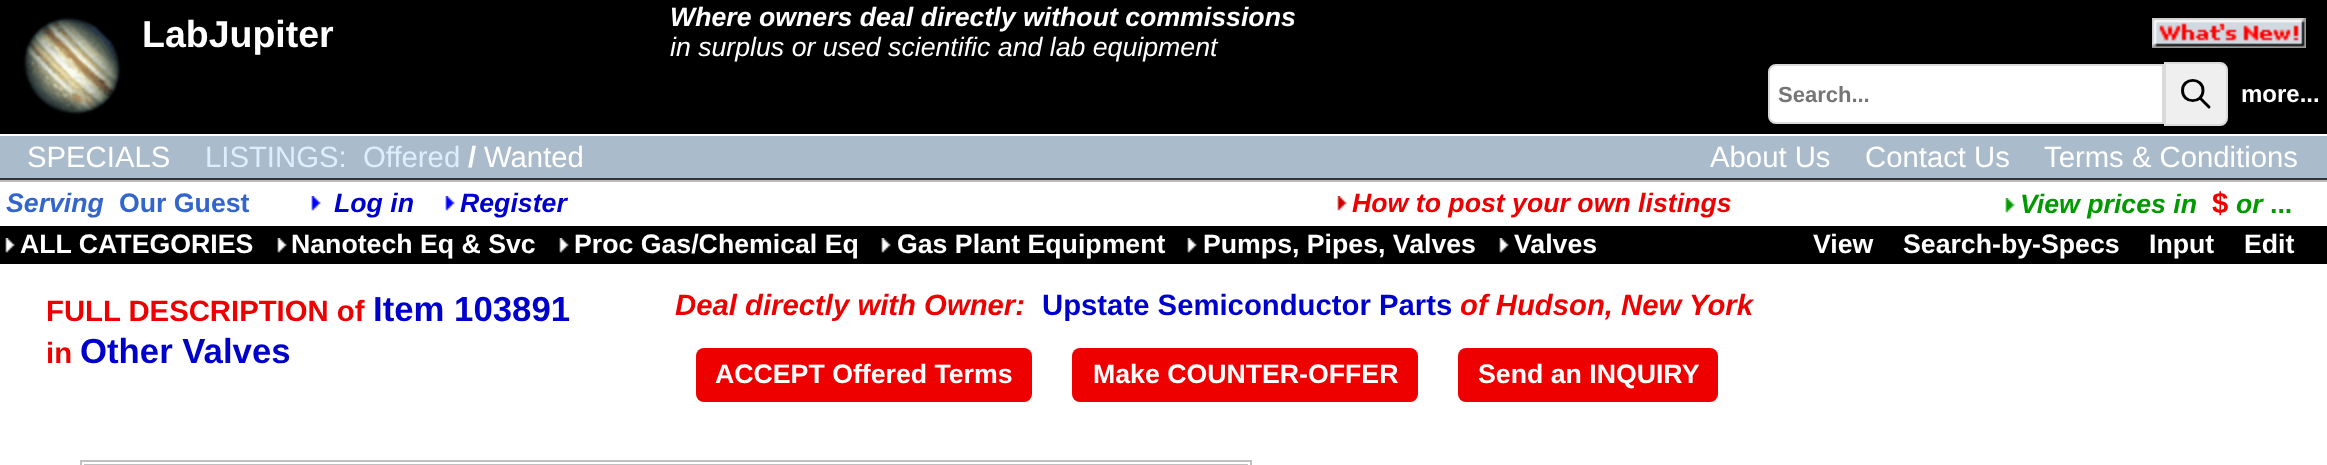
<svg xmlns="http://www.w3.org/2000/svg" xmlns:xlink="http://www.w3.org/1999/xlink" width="2327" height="465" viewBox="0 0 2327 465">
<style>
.cls-1{font:bold 37.5px Liberation Sans;fill:#ffffff}
.cls-2{font:italic bold 26.7px Liberation Sans;fill:#ffffff}
.cls-3{font:italic 26.7px Liberation Sans;fill:#ffffff}
.cls-4{font:bold 22px Liberation Sans;fill:#757575}
.cls-5{font:bold 24px Liberation Sans;fill:#ffffff}
.cls-6{font:29.3px Liberation Sans;fill:#ffffff}
.cls-7{font:29.3px Liberation Sans;fill:#ddeeff}
.cls-8{font:bold 29.3px Liberation Sans;fill:#ffffff}
.cls-9{font:italic bold 26.7px Liberation Sans;fill:#3366cc}
.cls-10{font:bold 26.7px Liberation Sans;fill:#3366cc}
.cls-11{font:italic bold 26.7px Liberation Sans;fill:#0000cc}
.cls-12{font:italic bold 26.7px Liberation Sans;fill:#ee0000}
.cls-13{font:italic bold 26.7px Liberation Sans;fill:#009900}
.cls-14{font:bold 29.3px Liberation Sans;fill:#ee0000}
.cls-15{font:bold 26.7px Liberation Sans;fill:#009900}
.cls-16{font:bold 26.7px Liberation Sans;fill:#ffffff}
.cls-17{font:bold 34.75px Liberation Sans;fill:#0000cc}
.cls-18{font:italic bold 29.3px Liberation Sans;fill:#ee0000}
.cls-19{font:bold 29.3px Liberation Sans;fill:#0000cc}
</style>
<rect width="100%" height="100%" fill="#ffffff"/>
<rect fill="#000000" x="0" y="0" width="2327" height="134"/>
<image xlink:href="image0.png" x="23" y="17" width="98" height="98"/>
<image xlink:href="image1.png" x="2152" y="18" width="154" height="30"/>
<path fill="#ffffff" stroke="#dadada" stroke-width="2" d="M1776 65H2163V123H1776C1772 123 1769 120 1769 116V72C1769 68 1772 65 1776 65Z"/>
<path fill="#efefef" stroke="#dadada" stroke-width="2" d="M2165 63H2220C2224 63 2227 66 2227 70V118C2227 122 2224 125 2220 125H2165Z"/>
<path fill="none" stroke="#000000" stroke-width="2.9" stroke-linecap="round" stroke-linejoin="round" d="M2209 107L2200 98M2203 90.5C2203 104 2182.5 104 2182.5 90.5C2182.5 77 2203 77 2203 90.5Z"/>
<rect fill="#aabbcc" x="0" y="136" width="2327" height="42"/>
<rect fill="#333333" x="0" y="178" width="2327" height="2"/>
<rect fill="#bbbbbb" x="0" y="180" width="2327" height="2"/>
<image xlink:href="image2.png" x="311" y="196" width="10" height="15"/>
<image xlink:href="image2.png" x="445" y="196" width="10" height="15"/>
<image xlink:href="image3.png" x="1337" y="196" width="10" height="15"/>
<image xlink:href="image4.png" x="2005" y="198" width="10" height="15"/>
<rect fill="#000000" x="0" y="226" width="2327" height="38"/>
<image xlink:href="image5.png" x="5" y="238" width="10" height="15"/>
<image xlink:href="image5.png" x="277" y="238" width="10" height="15"/>
<image xlink:href="image5.png" x="559" y="238" width="10" height="15"/>
<image xlink:href="image5.png" x="881" y="238" width="10" height="15"/>
<image xlink:href="image5.png" x="1187" y="238" width="10" height="15"/>
<image xlink:href="image5.png" x="1499" y="238" width="10" height="15"/>
<rect fill="#ee0000" x="696" y="348" width="336" height="54" rx="8"/>
<rect fill="#ee0000" x="1072" y="348" width="346" height="54" rx="8"/>
<rect fill="#ee0000" x="1458" y="348" width="260" height="54" rx="8"/>
<rect fill="none" stroke="#c0c0c0" stroke-width="2" x="81" y="461" width="1170" height="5"/>
<rect fill="none" stroke="#c0c0c0" stroke-width="2" x="85" y="465" width="1162" height="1"/>
<text class="cls-1" x="142" y="47">LabJupiter</text>
<text class="cls-2" x="670" y="26">Where owners deal directly without commissions</text>
<text class="cls-3" x="670" y="56">in surplus or used scientific and lab equipment</text>
<text class="cls-4" x="1778" y="102">Search...</text>
<text class="cls-5" x="2241" y="102">more...</text>
<text class="cls-6" x="27" y="167">SPECIALS</text>
<text class="cls-7" x="205" y="167">LISTINGS:</text>
<text class="cls-7" x="363" y="167">Offered</text>
<text class="cls-8" x="468" y="167">/</text>
<text class="cls-6" x="484" y="167">Wanted</text>
<text class="cls-6" x="1710" y="167">About Us</text>
<text class="cls-6" x="1865" y="167">Contact Us</text>
<text class="cls-6" x="2044" y="167">Terms &amp; Conditions</text>
<text class="cls-9" x="6" y="212">Serving</text>
<text class="cls-10" x="119" y="212">Our Guest</text>
<text class="cls-11" x="334" y="212">Log in</text>
<text class="cls-11" x="460" y="212">Register</text>
<text class="cls-12" x="1352" y="212">How to post your own listings</text>
<text class="cls-13" x="2020" y="213">View prices in</text>
<text class="cls-14" x="2212" y="213">$</text>
<text class="cls-13" x="2236" y="213">or</text>
<text class="cls-15" x="2270" y="213">...</text>
<text class="cls-16" x="20" y="253">ALL CATEGORIES</text>
<text class="cls-16" x="291" y="253">Nanotech Eq &amp; Svc</text>
<text class="cls-16" x="574" y="253">Proc Gas/Chemical Eq</text>
<text class="cls-16" x="897" y="253">Gas Plant Equipment</text>
<text class="cls-16" x="1203" y="253">Pumps, Pipes, Valves</text>
<text class="cls-16" x="1514" y="253">Valves</text>
<text class="cls-16" x="1813" y="253">View</text>
<text class="cls-16" x="1903" y="253">Search-by-Specs</text>
<text class="cls-16" x="2149" y="253">Input</text>
<text class="cls-16" x="2244" y="253">Edit</text>
<text class="cls-14" x="46" y="321">FULL DESCRIPTION of</text>
<text class="cls-17" x="373" y="321">Item 103891</text>
<text class="cls-14" x="46" y="363">in</text>
<text class="cls-17" x="80" y="363">Other Valves</text>
<text class="cls-18" x="675" y="315">Deal directly with Owner:</text>
<text class="cls-19" x="1042" y="315">Upstate Semiconductor Parts</text>
<text class="cls-18" x="1460" y="315">of Hudson, New York</text>
<text class="cls-16" x="715" y="383">ACCEPT Offered Terms</text>
<text class="cls-16" x="1093" y="383">Make COUNTER-OFFER</text>
<text class="cls-16" x="1478" y="383">Send an INQUIRY</text>
</svg>
